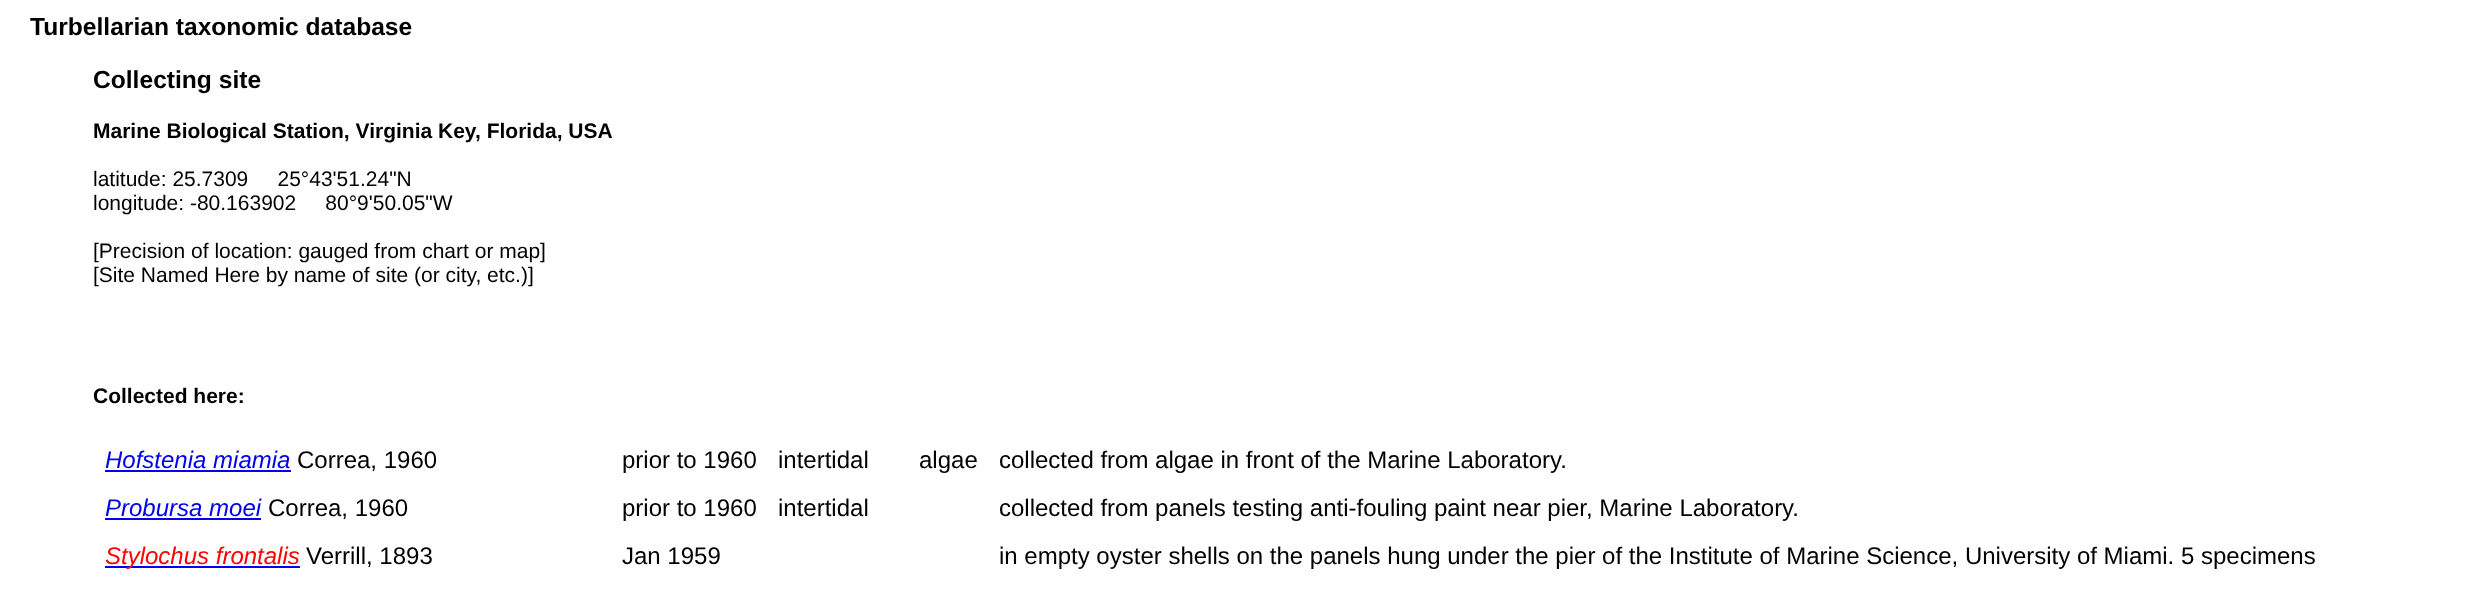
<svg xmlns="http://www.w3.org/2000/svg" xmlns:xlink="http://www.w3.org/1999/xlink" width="2489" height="594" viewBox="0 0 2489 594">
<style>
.cls-1{font:bold 24.6px Liberation Sans;fill:#000000}
.cls-2{font:bold 21px Liberation Sans;fill:#000000}
.cls-3{font:21px Liberation Sans;fill:#000000}
.cls-4{font:italic 24px Liberation Sans;fill:#0000ee}
.cls-5{font:24px Liberation Sans;fill:#000000}
.cls-6{font:italic 24px Liberation Sans;fill:#ff0000}
</style>
<rect width="100%" height="100%" fill="#ffffff"/>
<rect fill="#0000ee" x="105" y="470" width="186" height="2"/>
<rect fill="#0000ee" x="105" y="518" width="156" height="2"/>
<rect fill="#0000ee" x="105" y="566" width="195" height="2"/>
<text class="cls-1" x="30" y="35">Turbellarian taxonomic database</text>
<text class="cls-1" x="93" y="88">Collecting site</text>
<text class="cls-2" x="93" y="138">Marine Biological Station, Virginia Key, Florida, USA</text>
<text class="cls-3" xml:space="preserve"><tspan x="93" y="186">latitude: 25.7309     25°43'51.24"N</tspan><tspan x="93" y="210">longitude: -80.163902     80°9'50.05"W</tspan></text>
<text class="cls-3"><tspan x="93" y="258">[Precision of location: gauged from chart or map]</tspan><tspan x="93" y="282">[Site Named Here by name of site (or city, etc.)]</tspan></text>
<text class="cls-2" x="93" y="403">Collected here:</text>
<text class="cls-4" x="105" y="468">Hofstenia miamia</text>
<text class="cls-5" x="297" y="468">Correa, 1960</text>
<text class="cls-5" x="622" y="468">prior to 1960</text>
<text class="cls-5" x="778" y="468">intertidal</text>
<text class="cls-5" x="919" y="468">algae</text>
<text class="cls-5" x="999" y="468">collected from algae in front of the Marine Laboratory.</text>
<text class="cls-4" x="105" y="516">Probursa moei</text>
<text class="cls-5" x="268" y="516">Correa, 1960</text>
<text class="cls-5" x="622" y="516">prior to 1960</text>
<text class="cls-5" x="778" y="516">intertidal</text>
<text class="cls-5" x="999" y="516">collected from panels testing anti-fouling paint near pier, Marine Laboratory.</text>
<text class="cls-6" x="105" y="564">Stylochus frontalis</text>
<text class="cls-5" x="306" y="564">Verrill, 1893</text>
<text class="cls-5" x="622" y="564">Jan 1959</text>
<text class="cls-5" x="999" y="564">in empty oyster shells on the panels hung under the pier of the Institute of Marine Science, University of Miami. 5 specimens</text>
</svg>
